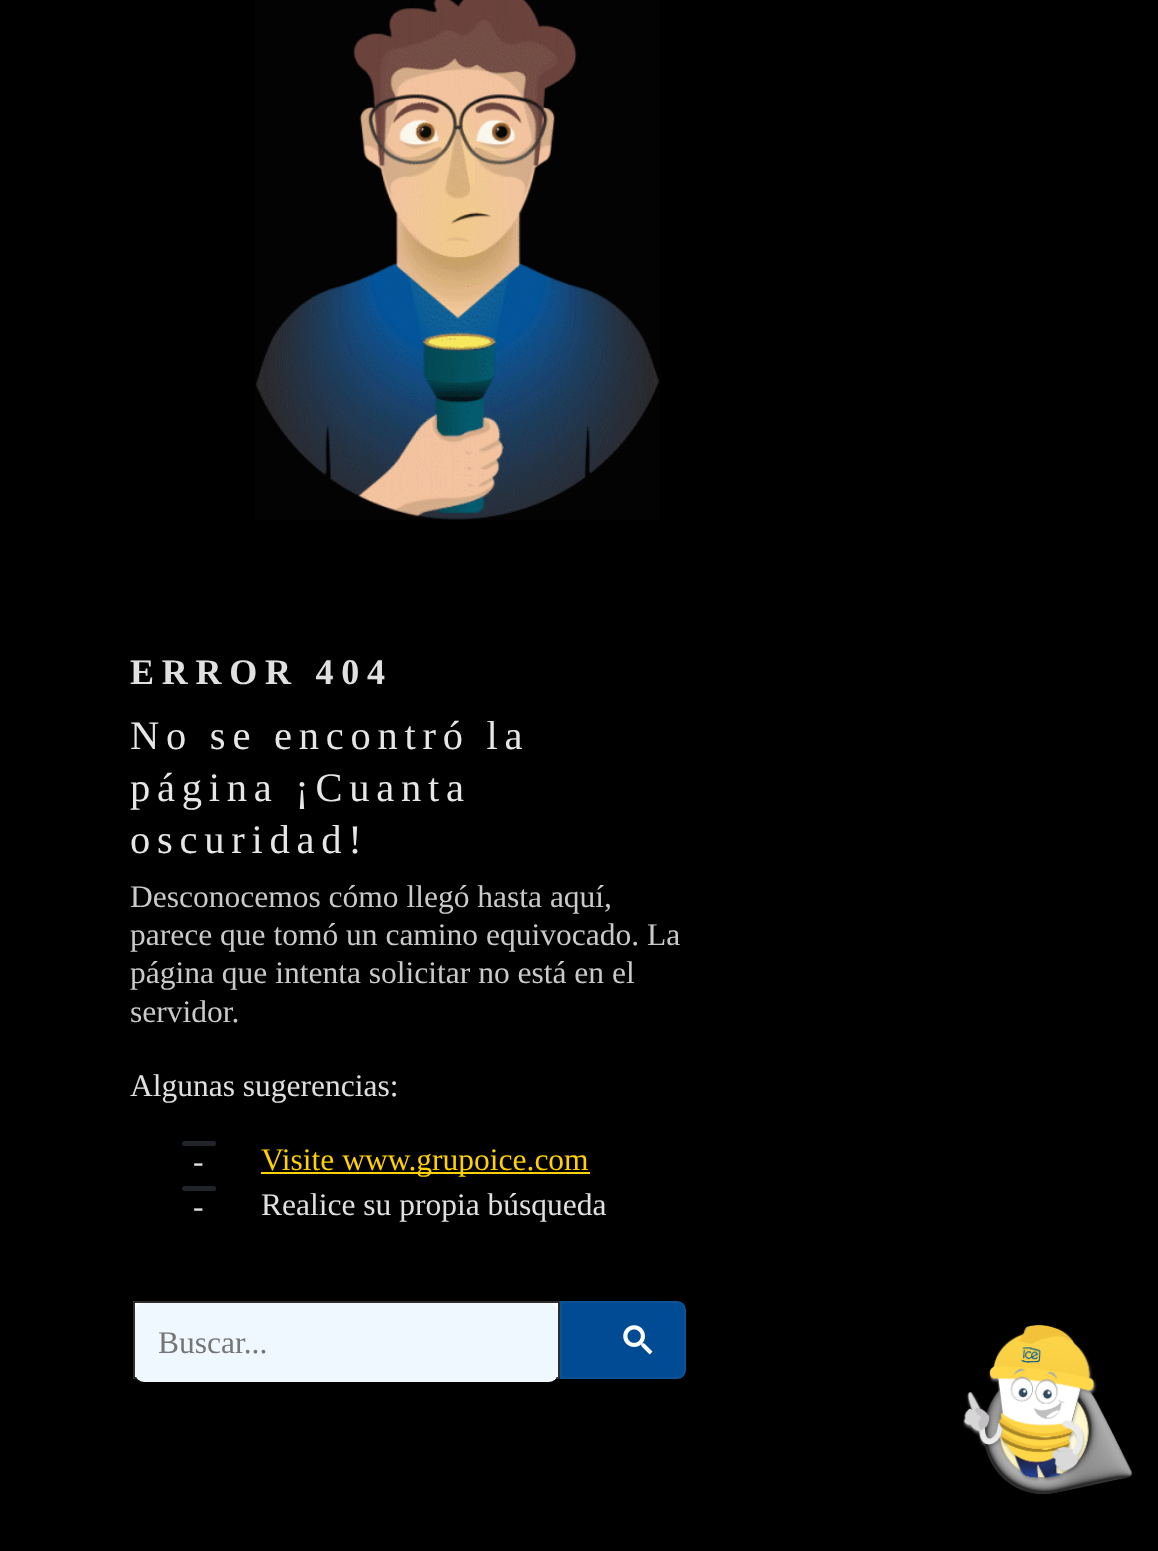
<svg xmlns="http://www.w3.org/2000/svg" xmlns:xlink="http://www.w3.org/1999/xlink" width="1158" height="1551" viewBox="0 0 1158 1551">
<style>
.cls-1{font:bold 36px Liberation Serif;letter-spacing:7.75px;fill:#e0e0e0}
.cls-2{font:40.5px Liberation Serif;letter-spacing:6.75px;fill:#e6e6e6}
.cls-3{font:31.5px Liberation Serif;fill:#cacaca}
.cls-4{font:31.5px Liberation Serif;fill:#e0e0e0}
.cls-5{font:31.5px Liberation Serif;fill:#ffd100}
.cls-6{font:31.5px Liberation Serif;fill:#757575}
</style>
<rect width="100%" height="100%" fill="#000000"/>
<image xlink:href="image0.png" x="255" y="0" width="405" height="520"/>
<rect fill="#212529" x="182" y="1141" width="34" height="5" rx="2.5"/>
<rect fill="#ffd100" x="261" y="1172" width="329" height="2"/>
<rect fill="#212529" x="182" y="1186" width="34" height="5" rx="2.5"/>
<rect fill="#ffffff" stroke="#2e2d2c" stroke-width="2" x="134" y="1302" width="425" height="76"/>
<rect fill="#f0f8ff" x="135" y="1303" width="423" height="79" rx="9"/>
<path fill="#004b93" stroke="#0b5394" stroke-width="2" d="M561 1302H677C681.5 1302 685 1305.5 685 1310V1370C685 1374.5 681.5 1378 677 1378H561Z"/>
<image xlink:href="image1.png" x="623" y="1325" width="30" height="30"/>
<image xlink:href="image2.png" x="963" y="1325" width="169" height="169"/>
<text class="cls-1" x="130" y="684">ERROR 404</text>
<text class="cls-2"><tspan x="130" y="749">No se encontró la</tspan><tspan x="130" y="801">página ¡Cuanta</tspan><tspan x="130" y="853">oscuridad!</tspan></text>
<text class="cls-3"><tspan x="130" y="907">Desconocemos cómo llegó hasta aquí,</tspan><tspan x="130" y="945">parece que tomó un camino equivocado. La</tspan><tspan x="130" y="983">página que intenta solicitar no está en el</tspan><tspan x="130" y="1022">servidor.</tspan></text>
<text class="cls-4" x="130" y="1096">Algunas sugerencias:</text>
<text class="cls-4" x="193" y="1172">-</text>
<text class="cls-5" x="261" y="1170">Visite www.grupoice.com</text>
<text class="cls-4" x="193" y="1217">-</text>
<text class="cls-4" x="261" y="1215">Realice su propia búsqueda</text>
<text class="cls-6" x="158" y="1353">Buscar...</text>
</svg>
